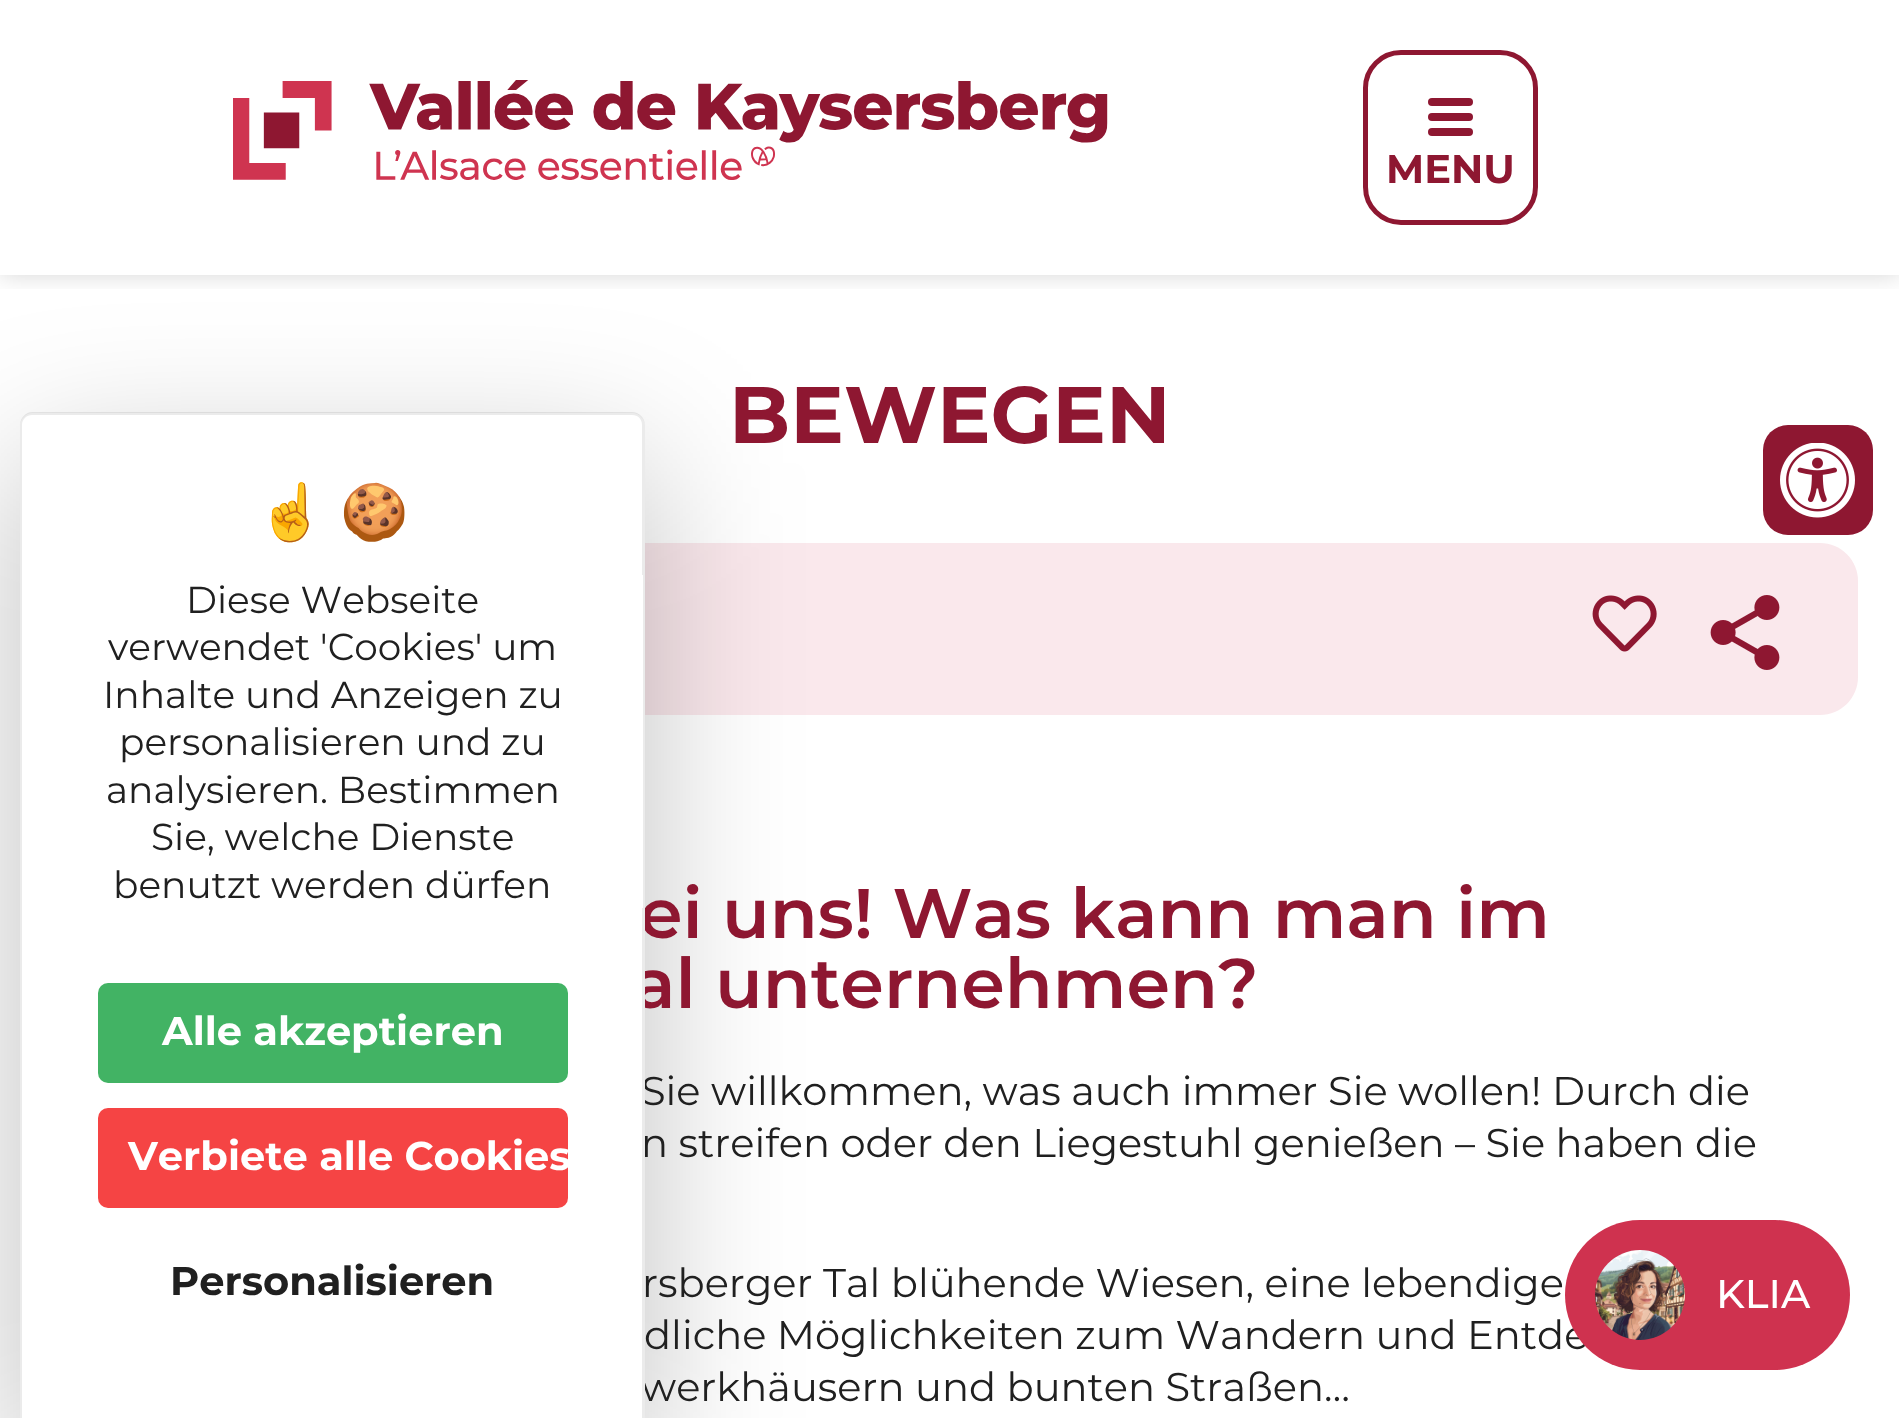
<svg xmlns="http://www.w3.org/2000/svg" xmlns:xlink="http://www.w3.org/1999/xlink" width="1899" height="1418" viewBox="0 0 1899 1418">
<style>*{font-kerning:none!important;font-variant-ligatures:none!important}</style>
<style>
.cls-1{font:bold 40px Montserrat;fill:#8e1731}
.cls-2{font:bold 80px Montserrat;fill:#8e1731}
.cls-3{font:600 70px Montserrat;fill:#8e1731}
.cls-4{font:40px Montserrat;fill:#202020}
.cls-5{font:37.5px Montserrat;fill:#202020}
.cls-6{font:bold 40px Montserrat;fill:#202020}
.cls-7{font:bold 40px Montserrat;fill:#ffffff}
.cls-8{font:55px Noto Color Emoji;fill:#202020}
.cls-9{font:500 40px Montserrat;fill:#ffffff}
</style>
<defs>
<clipPath id="clip1"><rect x="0" y="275" width="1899" height="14"/></clipPath>
</defs>
<rect width="100%" height="100%" fill="#ffffff"/>
<rect fill="#fae8ec" x="645" y="543" width="668" height="172"/>
<rect fill="#000000" fill-opacity="0.25" filter="blur(75px)" x="20" y="463" width="625" height="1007" rx="13"/>
<g clip-path="url(#clip1)">
<rect fill="#000000" fill-opacity="0.16" filter="blur(12.5px)" x="0" y="0" width="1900" height="275"/>
</g>
<image xlink:href="image0.png" x="233" y="80" width="875" height="100"/>
<rect fill="none" stroke="#8e1731" stroke-width="5" x="1365.5" y="52.5" width="170" height="170" rx="35.5"/>
<rect fill="#8e1731" x="1428" y="98" width="45" height="8" rx="4"/>
<rect fill="#8e1731" x="1428" y="113" width="45" height="8" rx="4"/>
<rect fill="#8e1731" x="1428" y="128" width="45" height="8" rx="4"/>
<path fill="#fae8ec" d="M1313 543H1820C1841 543 1858 560 1858 581V677C1858 698 1841 715 1820 715H1313Z"/>
<image xlink:href="image1.png" x="1592" y="595" width="65" height="57"/>
<image xlink:href="image2.png" x="1710" y="595" width="70" height="75"/>
<rect fill="#8e1731" x="1763" y="425" width="110" height="110" rx="25"/>
<image xlink:href="image3.png" x="1780" y="443" width="75" height="75"/>
<text class="cls-1" x="1386" y="183">MENU</text>
<text class="cls-2" x="729" y="443">BEWEGEN</text>
<text class="cls-3" x="639" y="938">ei uns! Was kann man im</text>
<text class="cls-3" x="633" y="1008">al unternehmen?</text>
<text class="cls-4"><tspan x="641" y="1105">Sie willkommen, was auch immer Sie wollen! Durch die</tspan><tspan x="641" y="1157">n streifen oder den Liegestuhl genießen – Sie haben die</tspan></text>
<text class="cls-4" x="642" y="1297">rsberger Tal blühende Wiesen, eine lebendige</text>
<text class="cls-4" x="644" y="1349">dliche Möglichkeiten zum Wandern und Entde</text>
<text class="cls-4" x="641" y="1401">werkhäusern und bunten Straßen…</text>
<path fill="#ffffff" d="M33 413H632C639 413 645 419 645 426V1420H20V426C20 419 26 413 33 413Z"/>
<path fill="#000000" fill-opacity="0.08" fill-rule="evenodd" d="M32 412H632C639 412 645 418 645 425V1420H20V425C20 418 26 412 32 412ZM32 415H632C638 415 642 419 642 425V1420H22V425C22 419 27 415 32 415Z"/>
<text class="cls-5" x="113" y="898">benutzt werden dürfen</text>
<text class="cls-5" x="151" y="850">Sie, welche Dienste</text>
<text class="cls-5" x="106" y="803">analysieren. Bestimmen</text>
<text class="cls-5" x="119" y="755">personalisieren und zu</text>
<text class="cls-5" x="103" y="708">Inhalte und Anzeigen zu</text>
<text class="cls-5" x="108" y="660">verwendet 'Cookies' um</text>
<text class="cls-5" x="186" y="613">Diese Webseite</text>
<rect fill="#ffffff" x="642" y="575" width="1" height="333"/>
<text class="cls-6" x="170" y="1295">Personalisieren</text>
<rect fill="#f54444" x="98" y="1108" width="470" height="100" rx="10"/>
<text class="cls-7" x="128" y="1170">Verbiete alle Cookies</text>
<rect fill="#42b364" x="98" y="983" width="470" height="100" rx="10"/>
<text class="cls-7" x="162" y="1045">Alle akzeptieren</text>
<text class="cls-8" x="340" y="531">🍪</text>
<text class="cls-8" x="257" y="531">☝️</text>
<rect fill="#cf324f" x="1565" y="1220" width="285" height="150" rx="75"/>
<image xlink:href="image4.png" x="1595" y="1250" width="90" height="90"/>
<text class="cls-9" x="1716" y="1308">KLIA</text>
</svg>
